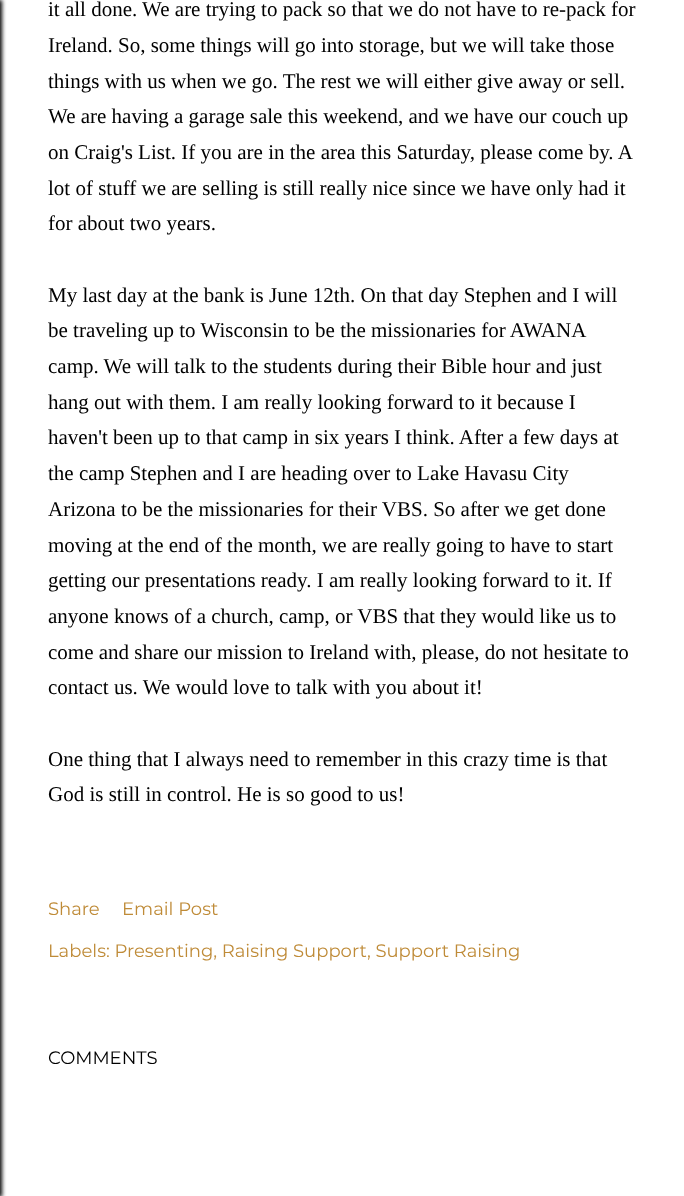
<svg xmlns="http://www.w3.org/2000/svg" xmlns:xlink="http://www.w3.org/1999/xlink" width="684" height="1196" viewBox="0 0 684 1196">
<style>
.cls-1{font:21px Liberation Serif;fill:#000000}
.cls-2{font:18px Montserrat;fill:#bf8b38}
.cls-3{font:18px Montserrat;fill:#000000}
</style>
<rect width="100%" height="100%" fill="#ffffff"/>
<rect fill="#000000" filter="blur(2px)" x="-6" y="0" width="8" height="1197"/>
<text class="cls-1"><tspan x="48" y="16">it all done. We are trying to pack so that we do not have to re-pack for</tspan><tspan x="48" y="52">Ireland. So, some things will go into storage, but we will take those</tspan><tspan x="48" y="88">things with us when we go. The rest we will either give away or sell.</tspan><tspan x="48" y="123">We are having a garage sale this weekend, and we have our couch up</tspan><tspan x="48" y="159">on Craig's List. If you are in the area this Saturday, please come by. A</tspan><tspan x="48" y="195">lot of stuff we are selling is still really nice since we have only had it</tspan><tspan x="48" y="230">for about two years.</tspan></text>
<text class="cls-1"><tspan x="48" y="302">My last day at the bank is June 12th. On that day Stephen and I will</tspan><tspan x="48" y="337">be traveling up to Wisconsin to be the missionaries for AWANA</tspan><tspan x="48" y="373">camp. We will talk to the students during their Bible hour and just</tspan><tspan x="48" y="409">hang out with them. I am really looking forward to it because I</tspan><tspan x="48" y="444">haven't been up to that camp in six years I think. After a few days at</tspan><tspan x="48" y="480">the camp Stephen and I are heading over to Lake Havasu City</tspan><tspan x="48" y="516">Arizona to be the missionaries for their VBS. So after we get done</tspan><tspan x="48" y="552">moving at the end of the month, we are really going to have to start</tspan><tspan x="48" y="587">getting our presentations ready. I am really looking forward to it. If</tspan><tspan x="48" y="623">anyone knows of a church, camp, or VBS that they would like us to</tspan><tspan x="48" y="659">come and share our mission to Ireland with, please, do not hesitate to</tspan><tspan x="48" y="694">contact us. We would love to talk with you about it!</tspan></text>
<text class="cls-1"><tspan x="48" y="766">One thing that I always need to remember in this crazy time is that</tspan><tspan x="48" y="801">God is still in control. He is so good to us!</tspan></text>
<text class="cls-2" x="48" y="915">Share</text>
<text class="cls-2" x="122" y="915">Email Post</text>
<text class="cls-2" x="48" y="957">Labels: Presenting, Raising Support, Support Raising</text>
<text class="cls-3" x="48" y="1064">COMMENTS</text>
</svg>
